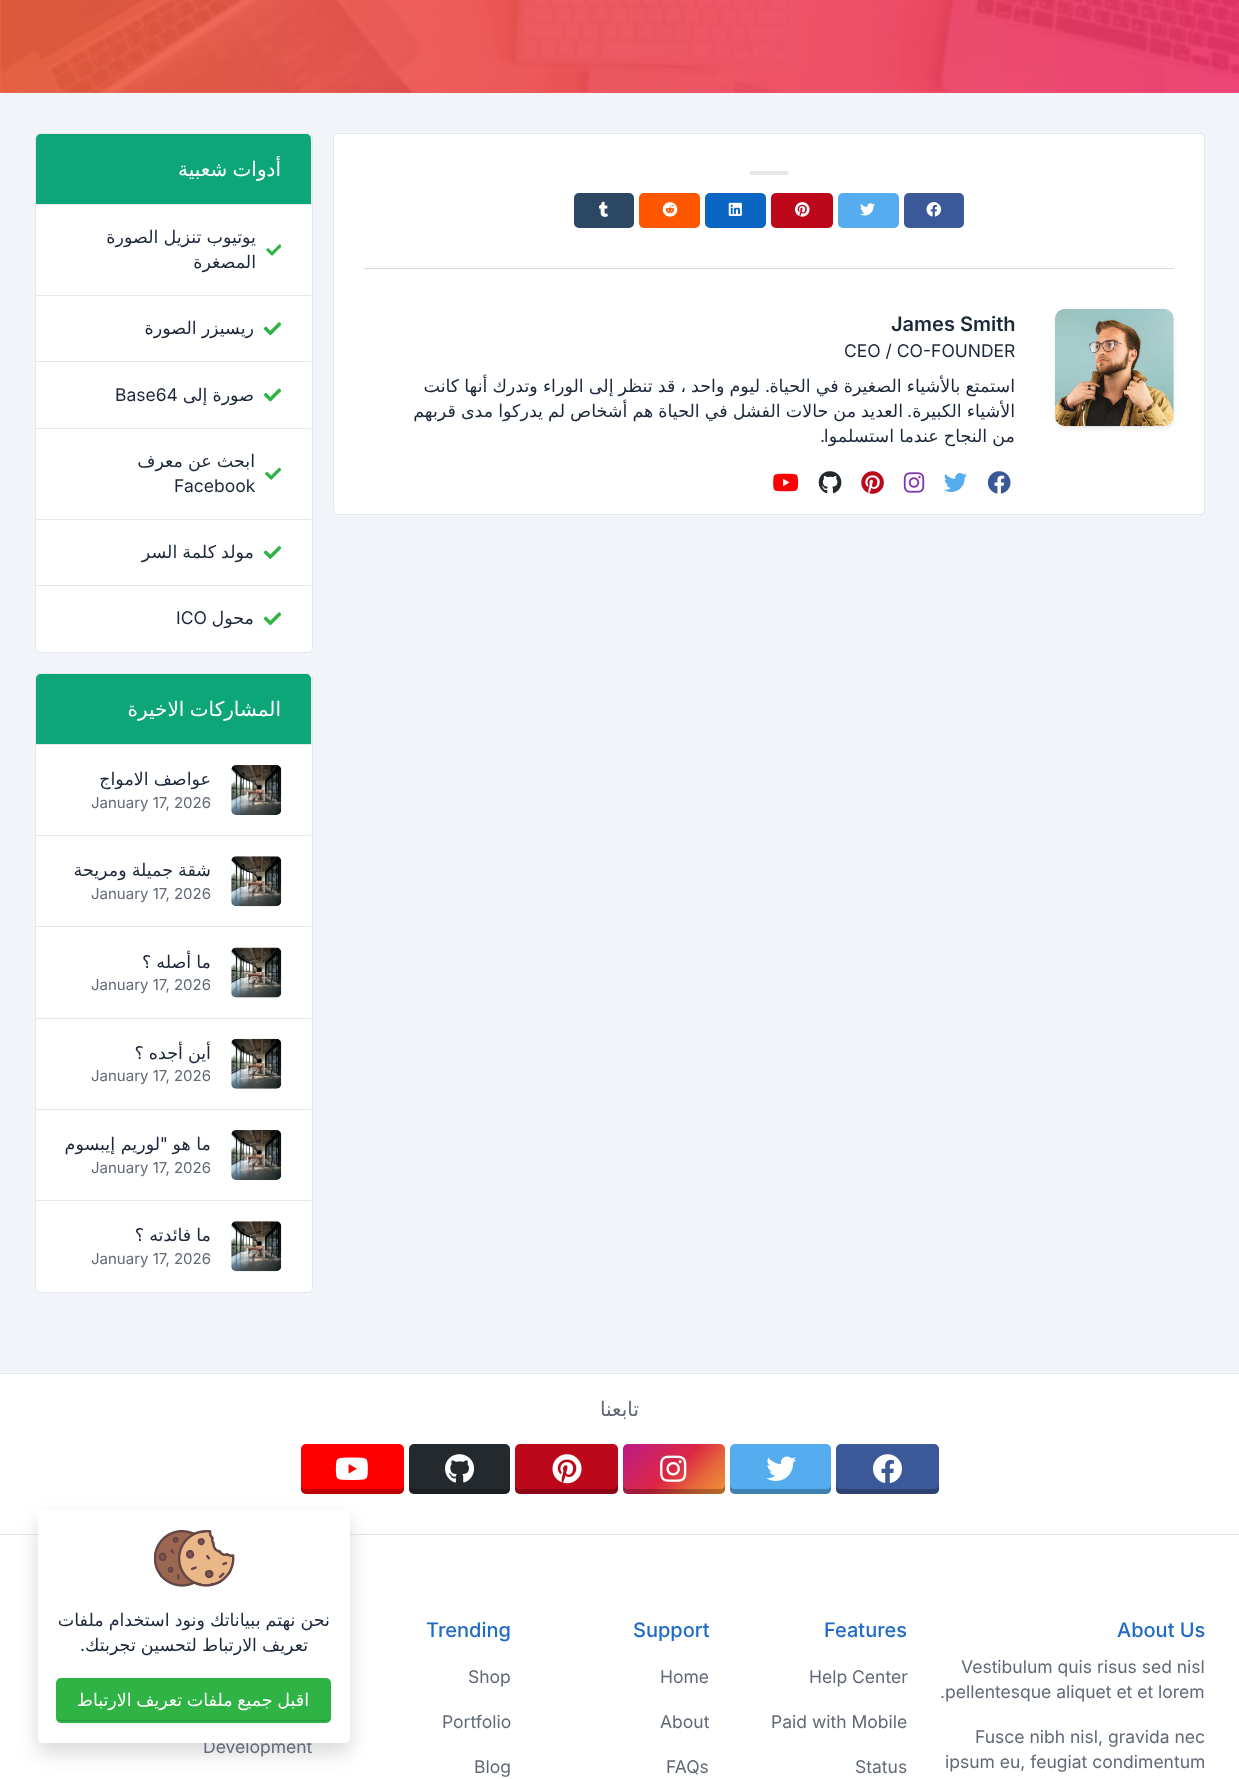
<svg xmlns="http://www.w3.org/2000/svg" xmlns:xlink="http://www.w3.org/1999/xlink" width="1239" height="1779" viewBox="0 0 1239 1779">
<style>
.cls-1{font:600 20px Inter;fill:#1d273b}
.cls-2{font:17.5px Inter;fill:#1d273b}
.cls-3{font:17.5px DejaVu Sans;direction:rtl;fill:#1d273b}
.cls-4{font:17.5px Inter;direction:rtl;fill:#1d273b}
.cls-5{font:20px DejaVu Sans;direction:rtl;fill:#ffffff}
.cls-6{font:15px Inter;fill:#616876}
.cls-7{font:20px DejaVu Sans;direction:rtl;fill:#616876}
.cls-8{font:500 20px Inter;fill:#206bc4}
.cls-9{font:17.5px Inter;fill:#616876}
.cls-10{font:17.5px DejaVu Sans;direction:rtl;fill:#ffffff}
</style>
<defs>
<linearGradient id="g1" gradientUnits="userSpaceOnUse" x1="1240" y1="-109" x2="0" y2="-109"><stop offset="0" stop-color="#ed3269" stop-opacity="0.9"/><stop offset="1" stop-color="#f05f3e" stop-opacity="0.9"/></linearGradient>
<linearGradient id="g2" gradientUnits="userSpaceOnUse" x1="712" y1="1507" x2="636" y2="1431"><stop offset="0" stop-color="#f09433"/><stop offset="0.25" stop-color="#e6683c"/><stop offset="0.5" stop-color="#dc2743"/><stop offset="0.75" stop-color="#cc2366"/><stop offset="1" stop-color="#bc1888"/></linearGradient>
<clipPath id="clip1"><rect x="66" y="1040" width="145" height="25"/></clipPath>
</defs>
<rect width="100%" height="100%" fill="#f1f5f9"/>
<rect fill="#f8fafc" x="0" y="0" width="1239" height="93"/>
<image xlink:href="image0.png" x="0" y="0" width="1239" height="93"/>
<rect fill="url(#g1)" x="0" y="0" width="1239" height="93"/>
<rect fill="#ffffff" stroke="#e6e7e9" x="333.5" y="133.5" width="871" height="381" rx="4.5"/>
<rect fill="#e6e6e6" x="750" y="171" width="38" height="4"/>
<rect fill="#3b5998" x="904" y="193" width="60" height="35" rx="5"/>
<image xlink:href="image1.png" x="926" y="202" width="15" height="15"/>
<rect fill="#55acee" x="838" y="193" width="61" height="35" rx="5"/>
<image xlink:href="image2.png" x="860" y="203" width="15" height="13"/>
<rect fill="#bd081c" x="771" y="193" width="62" height="35" rx="5"/>
<image xlink:href="image3.png" x="795" y="202" width="15" height="15"/>
<rect fill="#0a66c2" x="705" y="193" width="61" height="35" rx="5"/>
<image xlink:href="image4.png" x="728" y="202" width="14" height="14"/>
<rect fill="#ff5700" x="639" y="193" width="61" height="35" rx="5"/>
<image xlink:href="image5.png" x="662" y="202" width="16" height="15"/>
<rect fill="#2c4762" x="574" y="193" width="60" height="35" rx="5"/>
<image xlink:href="image6.png" x="599" y="201" width="9" height="16"/>
<rect fill="#dbdce0" x="364" y="268" width="810" height="1"/>
<rect fill="#000000" fill-opacity="0.07" filter="blur(2.5px)" x="1055" y="311" width="119" height="118" rx="10"/>
<image xlink:href="image7.png" x="1055" y="308" width="119" height="119"/>
<image xlink:href="image8.png" x="987" y="471" width="24" height="23"/>
<image xlink:href="image9.png" x="944" y="473" width="23" height="19"/>
<image xlink:href="image10.png" x="903" y="472" width="22" height="21"/>
<image xlink:href="image11.png" x="861" y="471" width="23" height="23"/>
<image xlink:href="image12.png" x="818" y="471" width="24" height="23"/>
<image xlink:href="image13.png" x="773" y="473" width="26" height="19"/>
<rect fill="#ffffff" stroke="#e6e7e9" x="35.5" y="133.5" width="277" height="519" rx="4.5"/>
<path fill="#0ca678" d="M41 134H306C309 134 311 136 311 139V205H36V139C36 136 38 134 41 134Z"/>
<rect fill="#e6e7e9" x="36" y="204" width="275" height="1"/>
<rect fill="#e6e7e9" x="36" y="295" width="275" height="1"/>
<image xlink:href="image14.png" x="266" y="244" width="15" height="12"/>
<rect fill="#e6e7e9" x="36" y="361" width="275" height="1"/>
<image xlink:href="image15.png" x="264" y="322" width="17" height="14"/>
<rect fill="#e6e7e9" x="36" y="428" width="275" height="1"/>
<image xlink:href="image16.png" x="264" y="388" width="17" height="14"/>
<rect fill="#e6e7e9" x="36" y="519" width="275" height="1"/>
<image xlink:href="image17.png" x="265" y="467" width="16" height="13"/>
<rect fill="#e6e7e9" x="36" y="585" width="275" height="1"/>
<image xlink:href="image18.png" x="264" y="546" width="17" height="13"/>
<image xlink:href="image15.png" x="264" y="612" width="17" height="14"/>
<rect fill="#ffffff" stroke="#e6e7e9" x="35.5" y="673.5" width="277" height="619" rx="4.5"/>
<path fill="#0ca678" d="M41 674H306C309 674 311 676 311 679V745H36V679C36 676 38 674 41 674Z"/>
<rect fill="#e6e7e9" x="36" y="744" width="275" height="1"/>
<rect fill="#e6e7e9" x="36" y="835" width="275" height="1"/>
<rect fill="#f1f5f9" x="231" y="765" width="50" height="50" rx="5"/>
<image xlink:href="image19.png" x="231" y="765" width="51" height="50"/>
<rect fill="#e6e7e9" x="36" y="926" width="275" height="1"/>
<rect fill="#f1f5f9" x="231" y="856" width="50" height="50" rx="5"/>
<image xlink:href="image20.png" x="231" y="856" width="51" height="51"/>
<rect fill="#e6e7e9" x="36" y="1018" width="275" height="1"/>
<rect fill="#f1f5f9" x="231" y="948" width="50" height="50" rx="5"/>
<image xlink:href="image21.png" x="231" y="947" width="51" height="51"/>
<rect fill="#e6e7e9" x="36" y="1109" width="275" height="1"/>
<rect fill="#f1f5f9" x="231" y="1039" width="50" height="50" rx="5"/>
<image xlink:href="image22.png" x="231" y="1038" width="51" height="51"/>
<rect fill="#e6e7e9" x="36" y="1200" width="275" height="1"/>
<rect fill="#f1f5f9" x="231" y="1130" width="50" height="50" rx="5"/>
<image xlink:href="image19.png" x="231" y="1130" width="51" height="50"/>
<rect fill="#f1f5f9" x="231" y="1221" width="50" height="50" rx="5"/>
<image xlink:href="image20.png" x="231" y="1221" width="51" height="51"/>
<rect fill="#ffffff" x="0" y="1374" width="1239" height="405"/>
<rect fill="#e6e7e9" x="0" y="1373" width="1239" height="1"/>
<rect fill="#3b5998" x="836" y="1444" width="103" height="50" rx="5"/>
<path fill="#000000" fill-opacity="0.25" d="M836 1484V1489C836 1492 838 1494 841 1494H934C937 1494 939 1492 939 1489V1484C939 1487 937 1489 934 1489H841C838 1489 836 1487 836 1484Z"/>
<image xlink:href="image23.png" x="873" y="1454" width="29" height="29"/>
<rect fill="#55acee" x="730" y="1444" width="101" height="50" rx="5"/>
<path fill="#000000" fill-opacity="0.25" d="M730 1484V1489C730 1492 732 1494 735 1494H826C829 1494 831 1492 831 1489V1484C831 1487 829 1489 826 1489H735C732 1489 730 1487 730 1484Z"/>
<image xlink:href="image24.png" x="766" y="1456" width="31" height="25"/>
<rect fill="url(#g2)" x="623" y="1444" width="102" height="50" rx="5"/>
<path fill="#000000" fill-opacity="0.25" d="M623 1487V1489C623 1492 625 1494 628 1494H720C723 1494 725 1492 725 1489V1484C725 1487 723 1489 720 1489H628C626 1489 624 1488 623 1487Z"/>
<image xlink:href="image25.png" x="660" y="1455" width="27" height="27"/>
<rect fill="#bd081c" x="515" y="1444" width="103" height="50" rx="5"/>
<path fill="#000000" fill-opacity="0.25" d="M515 1484V1489C515 1492 517 1494 520 1494H613C616 1494 618 1492 618 1489V1484C618 1487 615 1489 612 1489H520C517 1489 515 1487 515 1484Z"/>
<image xlink:href="image26.png" x="552" y="1454" width="30" height="30"/>
<rect fill="#24292e" x="409" y="1444" width="101" height="50" rx="5"/>
<path fill="#000000" fill-opacity="0.25" d="M409 1484V1489C409 1492 411 1494 414 1494H505C508 1494 510 1492 510 1489V1484C510 1487 508 1489 505 1489H414C411 1489 409 1487 409 1484Z"/>
<image xlink:href="image27.png" x="445" y="1454" width="30" height="29"/>
<rect fill="#ff0000" x="301" y="1444" width="103" height="50" rx="5"/>
<path fill="#000000" fill-opacity="0.25" d="M301 1484V1489C301 1492 303 1494 306 1494H399C402 1494 404 1492 404 1489V1484C404 1487 402 1489 399 1489H306C303 1489 301 1487 301 1484Z"/>
<image xlink:href="image28.png" x="335" y="1457" width="33" height="23"/>
<rect fill="#e6e7e9" x="0" y="1534" width="1239" height="1"/>
<rect fill="#000000" fill-opacity="0.15" filter="blur(10px)" x="38" y="1520" width="312" height="233" rx="5"/>
<text class="cls-1" x="891" y="331">James Smith</text>
<text class="cls-2" x="844" y="357">CEO / CO-FOUNDER</text>
<text class="cls-3" x="1015" y="392" word-spacing="-0.5">استمتع بالأشياء الصغيرة في الحياة</text>
<text class="cls-4" x="770" y="392">.</text>
<text class="cls-3" x="760" y="392" word-spacing="-0.5">ليوم واحد ، قد تنظر إلى الوراء وتدرك أنها كانت</text>
<text class="cls-3" x="1015" y="417" word-spacing="-0.5">الأشياء الكبيرة</text>
<text class="cls-4" x="912" y="417">.</text>
<text class="cls-3" x="903" y="417" word-spacing="-0.5">العديد من حالات الفشل في الحياة هم أشخاص لم يدركوا مدى قربهم</text>
<text class="cls-3" x="1015" y="442" word-spacing="-0.5">من النجاح عندما استسلموا</text>
<text class="cls-4" x="825" y="442">.</text>
<text class="cls-5" x="281" y="176" word-spacing="-1">أدوات شعبية</text>
<text class="cls-3"><tspan x="256" y="243" word-spacing="-0.5">يوتيوب تنزيل الصورة</tspan><tspan x="256" y="268">المصغرة</tspan></text>
<text class="cls-3" x="254" y="334" word-spacing="-0.5">ريسيزر الصورة</text>
<text class="cls-3" x="254" y="401" word-spacing="-0.5">صورة إلى</text>
<text class="cls-2" x="115" y="401">Base64</text>
<text class="cls-3" x="255" y="467" word-spacing="-0.5">ابحث عن معرف</text>
<text class="cls-2" x="174" y="492">Facebook</text>
<text class="cls-3" x="254" y="558" word-spacing="-0.5">مولد كلمة السر</text>
<text class="cls-3" x="254" y="624">محول</text>
<text class="cls-2" x="176" y="624">ICO</text>
<text class="cls-5" x="281" y="716" word-spacing="-1">المشاركات الاخيرة</text>
<text class="cls-3" x="211" y="785" word-spacing="-0.5">عواصف الامواج</text>
<text class="cls-6" x="91" y="808">January 17, 2026</text>
<text class="cls-3" x="211" y="876" word-spacing="-0.5">شقة جميلة ومريحة</text>
<text class="cls-6" x="91" y="899">January 17, 2026</text>
<text class="cls-3" x="211" y="968" word-spacing="-0.5">ما أصله ؟</text>
<text class="cls-6" x="91" y="990">January 17, 2026</text>
<g clip-path="url(#clip1)">
<text class="cls-3" x="211" y="1059" word-spacing="-0.5">أين أجده ؟</text>
</g>
<text class="cls-6" x="91" y="1081">January 17, 2026</text>
<text class="cls-3" x="211" y="1150">ما هو</text>
<text class="cls-4" x="168" y="1150">"</text>
<text class="cls-3" x="160" y="1150">لوريم إيبسوم</text>
<text class="cls-6" x="91" y="1173">January 17, 2026</text>
<text class="cls-3" x="211" y="1241" word-spacing="-0.5">ما فائدته ؟</text>
<text class="cls-6" x="91" y="1264">January 17, 2026</text>
<text class="cls-7" x="639" y="1416">تابعنا</text>
<text class="cls-8" x="1117" y="1637">About Us</text>
<text class="cls-9" x="961" y="1673">Vestibulum quis risus sed nisl</text>
<text class="cls-9" x="940" y="1698">.pellentesque aliquet et et lorem</text>
<text class="cls-9" x="975" y="1743">Fusce nibh nisl, gravida nec</text>
<text class="cls-9" x="945" y="1768">ipsum eu, feugiat condimentum</text>
<text class="cls-8" x="824" y="1637">Features</text>
<text class="cls-9" x="809" y="1683">Help Center</text>
<text class="cls-9" x="771" y="1728">Paid with Mobile</text>
<text class="cls-9" x="855" y="1773">Status</text>
<text class="cls-8" x="633" y="1637">Support</text>
<text class="cls-9" x="660" y="1683">Home</text>
<text class="cls-9" x="660" y="1728">About</text>
<text class="cls-9" x="666" y="1773">FAQs</text>
<text class="cls-8" x="426" y="1637">Trending</text>
<text class="cls-9" x="468" y="1683">Shop</text>
<text class="cls-9" x="442" y="1728">Portfolio</text>
<text class="cls-9" x="474" y="1773">Blog</text>
<text class="cls-9" x="203" y="1753">Development</text>
<rect fill="#ffffff" x="38" y="1510" width="312" height="233" rx="5"/>
<image xlink:href="image29.png" x="154" y="1530" width="81" height="57"/>
<text class="cls-3" x="330" y="1626" word-spacing="-0.5">نحن نهتم ببياناتك ونود استخدام ملفات</text>
<text class="cls-3" x="308" y="1651" word-spacing="-0.5">تعريف الارتباط لتحسين تجربتك</text>
<text class="cls-4" x="85" y="1651">.</text>
<path fill="#f6f6f7" d="M56 1682V1719C56 1722 58 1724 61 1724H326C329 1724 331 1722 331 1719C330 1721 328 1722 326 1722H61C58 1722 56 1720 56 1718Z"/>
<rect fill="#2fb344" x="56" y="1678" width="275" height="45" rx="5"/>
<path fill="#2b9742" d="M58 1716C58 1719 59 1721 62 1721H326C329 1721 330 1719 330 1716C330 1718 328 1720 326 1720H61C59 1720 58 1718 58 1716Z"/>
<text class="cls-10" x="309" y="1706" word-spacing="-1">اقبل جميع ملفات تعريف الارتباط</text>
</svg>
